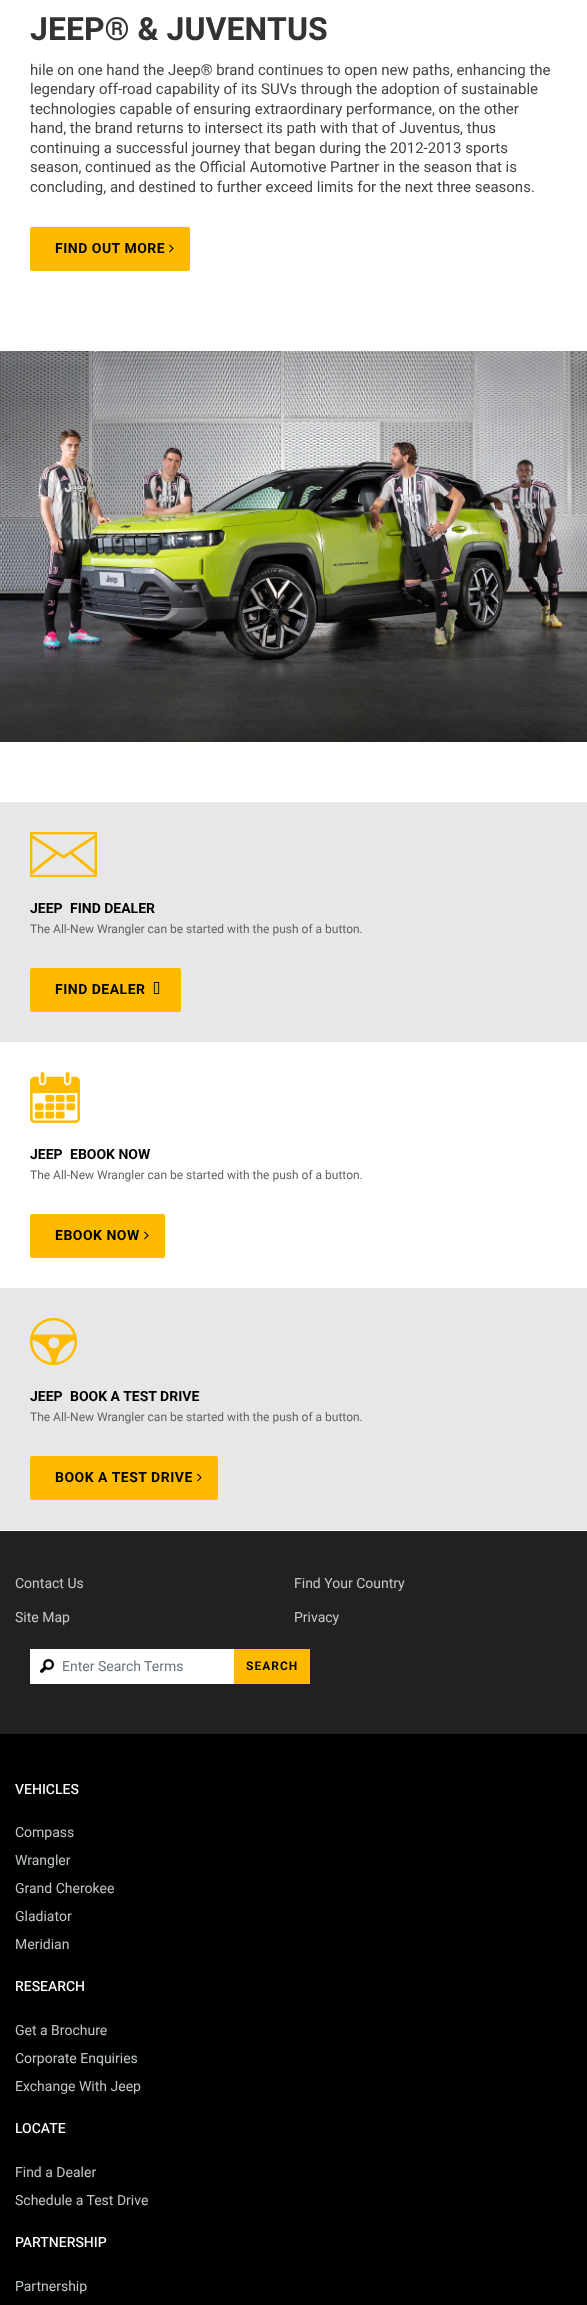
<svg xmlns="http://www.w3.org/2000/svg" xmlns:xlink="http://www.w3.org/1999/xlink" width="587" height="2305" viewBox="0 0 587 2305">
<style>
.cls-1{font:bold 32px Heebo;fill:#333333}
.cls-2{font:15px Roboto;fill:#434343}
.cls-3{font:bold 14px Roboto;letter-spacing:0.5px;fill:#000000}
.cls-4{font:bold 14px Roboto;fill:#000000}
.cls-5{font:12px Roboto;fill:#636363}
.cls-6{font:14px Roboto;fill:#c8c8c8}
.cls-7{font:14px Roboto;fill:#6c757d}
.cls-8{font:bold 12px Roboto;letter-spacing:1px;fill:#000000}
.cls-9{font:500 14px Heebo;fill:#ffffff}
.cls-10{font:14px Roboto;fill:#c0c7c0}
</style>
<rect width="100%" height="100%" fill="#212121"/>
<rect fill="#ffffff" x="0" y="0" width="587" height="1531"/>
<rect fill="#ffba00" x="30" y="227" width="160" height="44" rx="2"/>
<image xlink:href="image0.png" x="169" y="244" width="5" height="9"/>
<image xlink:href="image1.png" x="0" y="351" width="587" height="391"/>
<rect fill="#e7e7e7" x="0" y="802" width="587" height="240"/>
<image xlink:href="image2.png" x="30" y="832" width="67" height="45"/>
<rect fill="#ffba00" x="30" y="968" width="151" height="44" rx="2"/>
<image xlink:href="image3.png" x="153" y="982" width="7" height="12"/>
<image xlink:href="image4.png" x="30" y="1072" width="50" height="51"/>
<rect fill="#ffba00" x="30" y="1214" width="135" height="44" rx="2"/>
<image xlink:href="image0.png" x="144" y="1231" width="5" height="9"/>
<rect fill="#e7e7e7" x="0" y="1288" width="587" height="242"/>
<image xlink:href="image5.png" x="30" y="1318" width="47" height="47"/>
<rect fill="#ffba00" x="30" y="1456" width="188" height="44" rx="2"/>
<image xlink:href="image0.png" x="197" y="1473" width="5" height="9"/>
<rect fill="#ffffff" x="30" y="1649" width="204" height="35"/>
<image xlink:href="image6.png" x="40" y="1659" width="14" height="14"/>
<rect fill="#ffba00" x="234" y="1649" width="76" height="35"/>
<rect fill="#000000" x="0" y="1734" width="587" height="571"/>
<text class="cls-1" x="30" y="40">JEEP® &amp; JUVENTUS</text>
<text class="cls-2"><tspan x="30" y="75">hile on one hand the Jeep® brand continues to open new paths, enhancing the</tspan><tspan x="30" y="94">legendary off-road capability of its SUVs through the adoption of sustainable</tspan><tspan x="30" y="114">technologies capable of ensuring extraordinary performance, on the other</tspan><tspan x="30" y="133">hand, the brand returns to intersect its path with that of Juventus, thus</tspan><tspan x="30" y="153">continuing a successful journey that began during the 2012-2013 sports</tspan><tspan x="30" y="172">season, continued as the Official Automotive Partner in the season that is</tspan><tspan x="30" y="192">concluding, and destined to further exceed limits for the next three seasons.</tspan></text>
<text class="cls-3" x="55" y="253">FIND OUT MORE</text>
<text class="cls-4" x="30" y="913">JEEP</text>
<text class="cls-4" x="70" y="913">FIND DEALER</text>
<text class="cls-5" x="30" y="933">The All-New Wrangler can be started with the push of a button.</text>
<text class="cls-3" x="55" y="994">FIND DEALER</text>
<text class="cls-4" x="30" y="1159">JEEP</text>
<text class="cls-4" x="70" y="1159">EBOOK NOW</text>
<text class="cls-5" x="30" y="1179">The All-New Wrangler can be started with the push of a button.</text>
<text class="cls-3" x="55" y="1240">EBOOK NOW</text>
<text class="cls-4" x="30" y="1401">JEEP</text>
<text class="cls-4" x="70" y="1401">BOOK A TEST DRIVE</text>
<text class="cls-5" x="30" y="1421">The All-New Wrangler can be started with the push of a button.</text>
<text class="cls-3" x="55" y="1482">BOOK A TEST DRIVE</text>
<text class="cls-6" x="15" y="1588">Contact Us</text>
<text class="cls-6" x="294" y="1588">Find Your Country</text>
<text class="cls-6" x="15" y="1622">Site Map</text>
<text class="cls-6" x="294" y="1622">Privacy</text>
<text class="cls-7" x="62" y="1671">Enter Search Terms</text>
<text class="cls-8" x="246" y="1670">SEARCH</text>
<text class="cls-9" x="15" y="1794">VEHICLES</text>
<text class="cls-10" x="15" y="1837">Compass</text>
<text class="cls-10" x="15" y="1865">Wrangler</text>
<text class="cls-10" x="15" y="1893">Grand Cherokee</text>
<text class="cls-10" x="15" y="1921">Gladiator</text>
<text class="cls-10" x="15" y="1949">Meridian</text>
<text class="cls-9" x="15" y="1991">RESEARCH</text>
<text class="cls-10" x="15" y="2035">Get a Brochure</text>
<text class="cls-10" x="15" y="2063">Corporate Enquiries</text>
<text class="cls-10" x="15" y="2091">Exchange With Jeep</text>
<text class="cls-9" x="15" y="2133">LOCATE</text>
<text class="cls-10" x="15" y="2177">Find a Dealer</text>
<text class="cls-10" x="15" y="2205">Schedule a Test Drive</text>
<text class="cls-9" x="15" y="2247">PARTNERSHIP</text>
<text class="cls-10" x="15" y="2291">Partnership</text>
</svg>
